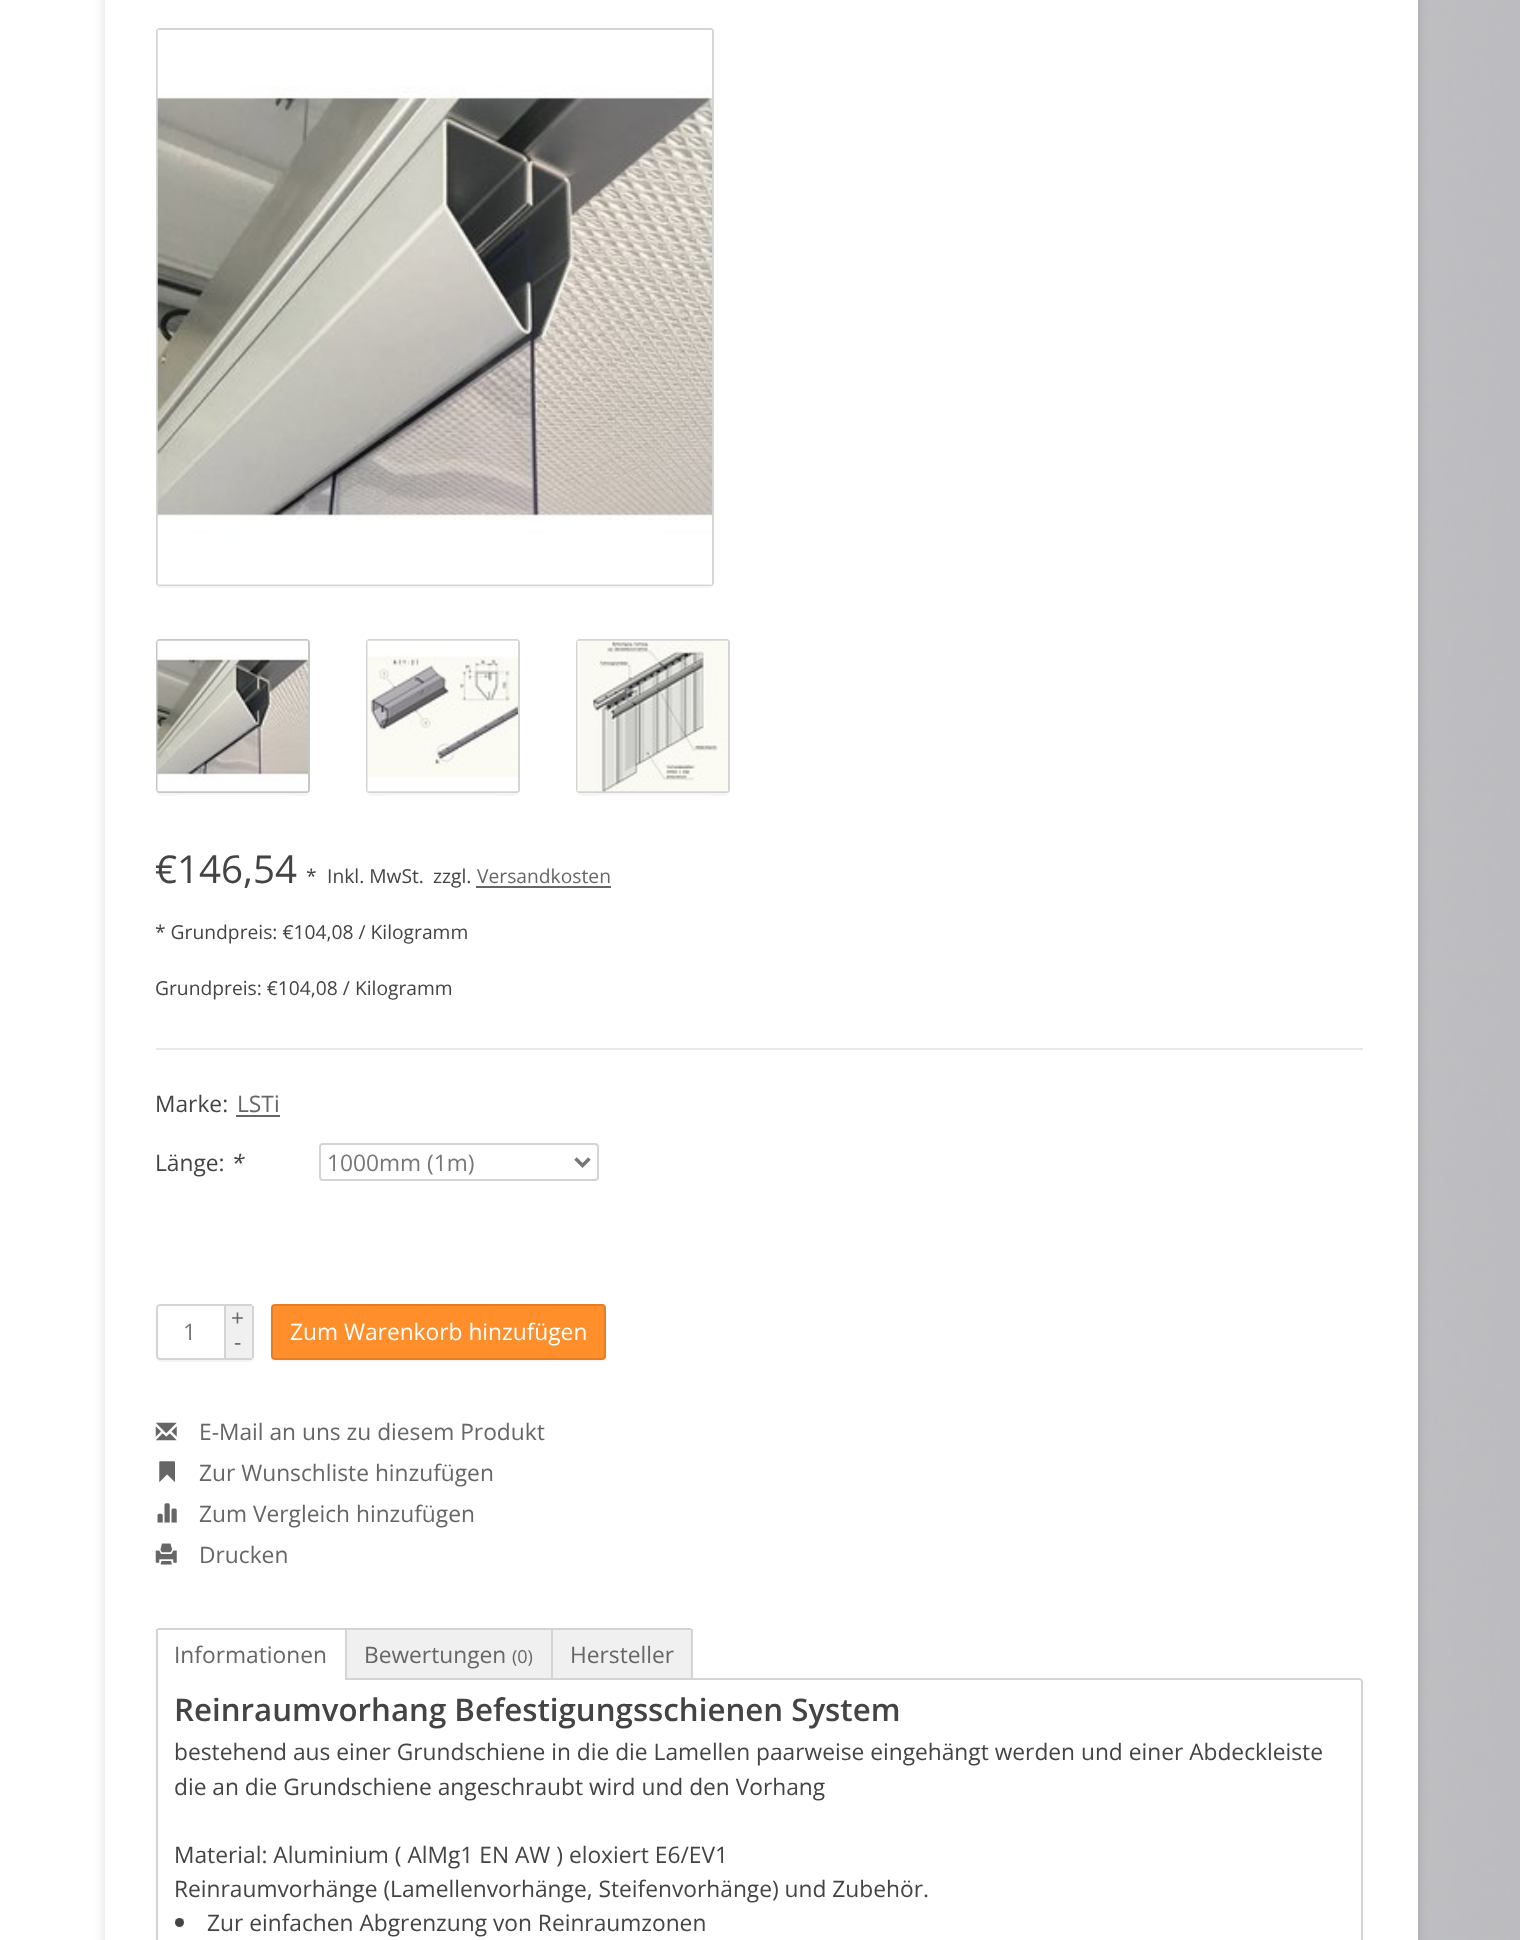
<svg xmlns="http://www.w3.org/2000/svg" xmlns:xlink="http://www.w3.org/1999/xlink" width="1520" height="1940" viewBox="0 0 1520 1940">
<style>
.cls-1{font:38.5px Open Sans;fill:#444444}
.cls-2{font:19.25px Open Sans;fill:#444444}
.cls-3{font:19.25px Open Sans;fill:#666666}
.cls-4{font:22.75px Open Sans;fill:#444444}
.cls-5{font:22.75px Open Sans;fill:#666666}
.cls-6{font:italic 22.75px Open Sans;fill:#444444}
.cls-7{font:22.75px Open Sans;fill:#777777}
.cls-8{font:22.75px Open Sans;fill:#ffffff}
.cls-9{font:18px Open Sans;fill:#666666}
.cls-10{font:600 31.25px Open Sans;fill:#444444}
</style>
<rect width="100%" height="100%" fill="#ffffff"/>
<image xlink:href="image0.png" x="1418" y="0" width="102" height="1940"/>
<rect fill="#000000" fill-opacity="0.13" filter="blur(6px)" x="105" y="-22" width="1313" height="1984" rx="4"/>
<rect fill="#ffffff" x="105" y="0" width="1313" height="1940"/>
<path fill="#f5f5f5" d="M156 584C156 586 158 588 160 588H710C713 588 714 585 714 583C714 585 712 586 710 586H159C158 586 157 585 156 584Z"/>
<rect fill="none" stroke="#d4d4d4" stroke-width="2" x="157" y="29" width="556" height="556" rx="3"/>
<image xlink:href="image1.png" x="157" y="30" width="556" height="555"/>
<path fill="#f5f5f5" d="M156 791C156 799 176 795 184 795H282C289 795 310 799 310 791V644V789C310 791 308 793 306 793H159C158 793 157 792 156 791Z"/>
<rect fill="none" stroke="#c6c6c6" stroke-width="2" x="157" y="640" width="152" height="152" rx="3"/>
<image xlink:href="image2.png" x="157" y="640" width="151" height="152"/>
<path fill="#f5f5f5" d="M366 791C366 799 386 795 394 795H492C499 795 520 799 520 791V644V789C520 791 518 793 516 793H369C368 793 367 792 366 791Z"/>
<rect fill="none" stroke="#d4d4d4" stroke-width="2" x="367" y="640" width="152" height="152" rx="3"/>
<image xlink:href="image3.png" x="367" y="640" width="151" height="152"/>
<path fill="#f5f5f5" d="M576 791C576 799 596 795 604 795H702C709 795 730 799 730 791V644V789C730 791 728 793 726 793H579C578 793 577 792 576 791Z"/>
<rect fill="none" stroke="#d4d4d4" stroke-width="2" x="577" y="640" width="152" height="152" rx="3"/>
<image xlink:href="image4.png" x="577" y="640" width="151" height="152"/>
<rect fill="#e9e9e9" x="156" y="1048" width="1207" height="2"/>
<rect fill="#666666" x="476" y="886" width="135" height="2"/>
<rect fill="#666666" x="236" y="1115" width="44" height="2"/>
<rect fill="none" stroke="#d4d4d4" stroke-width="2" x="320" y="1144" width="278" height="36" rx="3"/>
<path fill="none" stroke="#777777" stroke-width="3.5" d="M575.5 1158.5L582.5 1165.5L589.5 1158.5"/>
<path fill="#f5f5f5" d="M156 1358C156 1360 158 1362 160 1362H226V1306V1360H158Z"/>
<path fill="none" stroke="#d4d4d4" stroke-width="2" d="M160 1305H225V1359H160C158.5 1359 157 1357.5 157 1356V1308C157 1306.5 158.5 1305 160 1305Z"/>
<path fill="#f5f5f5" d="M226 1360V1362H246C256 1362 254 1360 254 1350V1309V1356C254 1358 252 1360 250 1360Z"/>
<path fill="#f0f0f0" d="M226 1304H250C252 1304 254 1306 254 1308V1356C254 1358 252 1360 250 1360H226Z"/>
<rect fill="#d4d4d4" x="226" y="1304" width="26" height="2"/>
<rect fill="#d4d4d4" x="252" y="1306" width="2" height="52"/>
<rect fill="#d4d4d4" x="226" y="1358" width="26" height="2"/>
<path fill="#f5f5f5" d="M271 1309V1358C271 1360 273 1362 275 1362H602C604 1362 606 1360 606 1358V1310V1308V1356C606 1358 604 1360 602 1360H275C273 1360 271 1358 271 1356Z"/>
<rect fill="#ff8e2b" stroke="#e57f26" stroke-width="2" x="272" y="1305" width="333" height="54" rx="3"/>
<image xlink:href="image5.png" x="155" y="1422" width="22" height="19"/>
<image xlink:href="image6.png" x="159" y="1461" width="16" height="22"/>
<image xlink:href="image7.png" x="157" y="1503" width="20" height="20"/>
<image xlink:href="image8.png" x="155" y="1543" width="22" height="22"/>
<path fill="none" stroke="#d4d4d4" stroke-width="2" d="M157 1679H1359C1360.5 1679 1362 1680.5 1362 1682V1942C1362 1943.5 1360.5 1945 1359 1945H160C158.5 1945 157 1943.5 157 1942Z"/>
<path fill="#ffffff" d="M160 1628H347V1680H156V1632C156 1630 158 1628 160 1628Z"/>
<rect fill="#d4d4d4" x="158" y="1628" width="395" height="2"/>
<rect fill="#d4d4d4" x="345" y="1628" width="2" height="52"/>
<rect fill="#d4d4d4" x="156" y="1629" width="2" height="51"/>
<rect fill="#f0f0f0" x="347" y="1630" width="204" height="48"/>
<path fill="#f0f0f0" d="M551 1628H689C691 1628 693 1630 693 1632V1678H551Z"/>
<rect fill="#d4d4d4" x="551" y="1628" width="140" height="2"/>
<rect fill="#d4d4d4" x="691" y="1629" width="2" height="49"/>
<rect fill="#d4d4d4" x="551" y="1628" width="2" height="50"/>
<circle fill="#444444" cx="179.5" cy="1922.5" r="4.5"/>
<text class="cls-1" x="155" y="883">€146,54</text>
<text class="cls-2" x="306" y="883">*</text>
<text class="cls-2" x="327" y="883">Inkl. MwSt.</text>
<text class="cls-2" x="433" y="883">zzgl.</text>
<text class="cls-3" x="477" y="883">Versandkosten</text>
<text class="cls-2" x="155" y="939">* Grundpreis: €104,08 / Kilogramm</text>
<text class="cls-2" x="155" y="995">Grundpreis: €104,08 / Kilogramm</text>
<text class="cls-4" x="155" y="1112">Marke:</text>
<text class="cls-5" x="237" y="1112">LSTi</text>
<text class="cls-4" x="155" y="1171">Länge:</text>
<text class="cls-6" x="230" y="1171">*</text>
<text class="cls-7" x="327" y="1171">1000mm (1m)</text>
<text class="cls-7" x="183" y="1340">1</text>
<text class="cls-5" x="231" y="1326">+</text>
<text class="cls-5" x="234" y="1350">-</text>
<text class="cls-8" x="290" y="1340">Zum Warenkorb hinzufügen</text>
<text class="cls-5"><tspan x="199" y="1440">E-Mail an uns zu diesem Produkt</tspan><tspan x="199" y="1481">Zur Wunschliste hinzufügen</tspan><tspan x="199" y="1522">Zum Vergleich hinzufügen</tspan><tspan x="199" y="1563">Drucken</tspan></text>
<text class="cls-5" x="174" y="1663">Informationen</text>
<text class="cls-5" x="364" y="1663">Bewertungen</text>
<text class="cls-9" x="512" y="1663">(0)</text>
<text class="cls-5" x="570" y="1663">Hersteller</text>
<text class="cls-10" x="174" y="1721">Reinraumvorhang Befestigungsschienen System</text>
<text class="cls-4"><tspan x="174" y="1760">bestehend aus einer Grundschiene in die die Lamellen paarweise eingehängt werden und einer Abdeckleiste</tspan><tspan x="174" y="1795">die an die Grundschiene angeschraubt wird und den Vorhang</tspan></text>
<text class="cls-4"><tspan x="174" y="1863">Material: Aluminium ( AlMg1 EN AW ) eloxiert E6/EV1</tspan><tspan x="174" y="1897">Reinraumvorhänge (Lamellenvorhänge, Steifenvorhänge) und Zubehör.</tspan></text>
<text class="cls-4" x="207" y="1931">Zur einfachen Abgrenzung von Reinraumzonen</text>
</svg>
